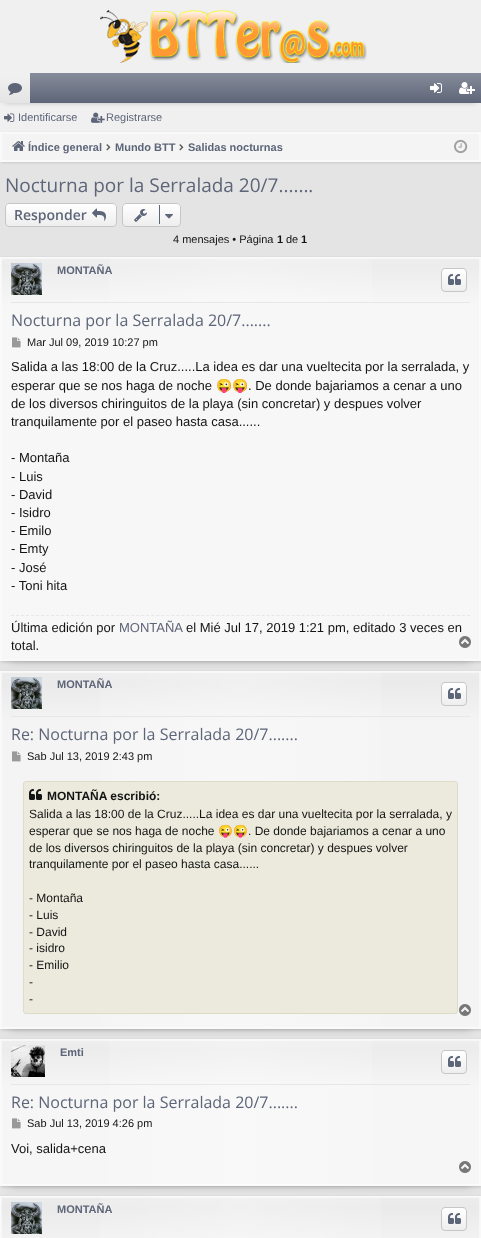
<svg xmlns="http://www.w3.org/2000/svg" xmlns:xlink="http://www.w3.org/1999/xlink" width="481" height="1238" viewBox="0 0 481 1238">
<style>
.cls-1{font:11px Liberation Sans;fill:#5d6578}
.cls-2{font:bold 11px Liberation Sans;fill:#5d6578}
.cls-3{font:19px Open Sans;fill:#5d6578}
.cls-4{font:600 14px Open Sans;fill:#5d6578}
.cls-5{font:11px Liberation Sans;fill:#141414}
.cls-6{font:bold 11px Liberation Sans;fill:#141414}
.cls-7{font:16px Open Sans;fill:#5d6578}
.cls-8{font:13px Liberation Sans;fill:#141414}
.cls-9{font:13px Noto Color Emoji;fill:#141414}
.cls-10{font:13px Liberation Sans;fill:#5d6578}
.cls-11{font:bold 12px Liberation Sans;fill:#141414}
.cls-12{font:12px Liberation Sans;fill:#141414}
.cls-13{font:12px Noto Color Emoji;fill:#141414}
</style>
<defs>
<linearGradient id="g1" gradientUnits="userSpaceOnUse" x1="241" y1="73" x2="241" y2="103"><stop offset="0" stop-color="#868c9a"/><stop offset="1" stop-color="#5d6578"/></linearGradient>
<linearGradient id="g2" gradientUnits="userSpaceOnUse" x1="15" y1="73" x2="15" y2="103"><stop offset="0" stop-color="#f2f2f2"/><stop offset="1" stop-color="#e4e4e4"/></linearGradient>
<clipPath id="clip1"><rect x="5" y="203" width="112" height="24" rx="4"/></clipPath>
<linearGradient id="g3" gradientUnits="userSpaceOnUse" x1="61" y1="204" x2="61" y2="226"><stop offset="0" stop-color="#ffffff"/><stop offset="1" stop-color="#ffffff" stop-opacity="0"/></linearGradient>
<clipPath id="clip2"><rect x="122" y="203" width="59" height="24" rx="4"/></clipPath>
<linearGradient id="g4" gradientUnits="userSpaceOnUse" x1="152" y1="204" x2="152" y2="226"><stop offset="0" stop-color="#ffffff"/><stop offset="1" stop-color="#ffffff" stop-opacity="0"/></linearGradient>
<linearGradient id="g5" gradientUnits="userSpaceOnUse" x1="240" y1="258" x2="241" y2="660"><stop offset="0" stop-color="#eeeeee"/><stop offset="0.02" stop-color="#ececec"/><stop offset="0.12" stop-color="#f7f7f7"/></linearGradient>
<linearGradient id="g6" gradientUnits="userSpaceOnUse" x1="1" y1="459" x2="480" y2="459"><stop offset="0" stop-color="#ffffff" stop-opacity="0"/><stop offset="0.5" stop-color="#ffffff" stop-opacity="0.3"/><stop offset="1" stop-color="#ffffff" stop-opacity="0"/></linearGradient>
<clipPath id="clip3"><rect x="441" y="268" width="26" height="24" rx="4"/></clipPath>
<linearGradient id="g7" gradientUnits="userSpaceOnUse" x1="454" y1="269" x2="454" y2="291"><stop offset="0" stop-color="#ffffff"/><stop offset="1" stop-color="#eeeeee"/></linearGradient>
<linearGradient id="g8" gradientUnits="userSpaceOnUse" x1="240" y1="672" x2="241" y2="1028"><stop offset="0" stop-color="#ececec"/><stop offset="0.03" stop-color="#eaeaea"/><stop offset="0.14" stop-color="#f4f4f4"/></linearGradient>
<linearGradient id="g9" gradientUnits="userSpaceOnUse" x1="1" y1="850" x2="480" y2="850"><stop offset="0" stop-color="#ffffff" stop-opacity="0"/><stop offset="0.5" stop-color="#ffffff" stop-opacity="0.3"/><stop offset="1" stop-color="#ffffff" stop-opacity="0"/></linearGradient>
<clipPath id="clip4"><rect x="441" y="682" width="26" height="24" rx="4"/></clipPath>
<linearGradient id="g10" gradientUnits="userSpaceOnUse" x1="454" y1="683" x2="454" y2="705"><stop offset="0" stop-color="#ffffff"/><stop offset="1" stop-color="#eeeeee"/></linearGradient>
<linearGradient id="g11" gradientUnits="userSpaceOnUse" x1="241" y1="1040" x2="241" y2="1185"><stop offset="0" stop-color="#eeeeee"/><stop offset="0.07" stop-color="#ececec"/><stop offset="0.34" stop-color="#f6f6f6"/></linearGradient>
<linearGradient id="g12" gradientUnits="userSpaceOnUse" x1="1" y1="1113" x2="480" y2="1113"><stop offset="0" stop-color="#ffffff" stop-opacity="0"/><stop offset="0.5" stop-color="#ffffff" stop-opacity="0.3"/><stop offset="1" stop-color="#ffffff" stop-opacity="0"/></linearGradient>
<clipPath id="clip5"><rect x="441" y="1050" width="26" height="24" rx="4"/></clipPath>
<linearGradient id="g13" gradientUnits="userSpaceOnUse" x1="454" y1="1051" x2="454" y2="1073"><stop offset="0" stop-color="#ffffff"/><stop offset="1" stop-color="#eeeeee"/></linearGradient>
<linearGradient id="g14" gradientUnits="userSpaceOnUse" x1="241" y1="1197" x2="241" y2="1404"><stop offset="0" stop-color="#ececec"/><stop offset="0.05" stop-color="#eaeaea"/><stop offset="0.24" stop-color="#f4f4f4"/></linearGradient>
<linearGradient id="g15" gradientUnits="userSpaceOnUse" x1="1" y1="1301" x2="480" y2="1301"><stop offset="0" stop-color="#ffffff" stop-opacity="0"/><stop offset="0.5" stop-color="#ffffff" stop-opacity="0.3"/><stop offset="1" stop-color="#ffffff" stop-opacity="0"/></linearGradient>
<clipPath id="clip6"><rect x="441" y="1207" width="26" height="24" rx="4"/></clipPath>
<linearGradient id="g16" gradientUnits="userSpaceOnUse" x1="454" y1="1208" x2="454" y2="1230"><stop offset="0" stop-color="#ffffff"/><stop offset="1" stop-color="#eeeeee"/></linearGradient>
</defs>
<rect width="100%" height="100%" fill="#f0f0f0"/>
<image xlink:href="image0.png" x="100" y="10" width="267" height="53"/>
<rect fill="#000000" fill-opacity="0.2" filter="blur(2.5px)" x="5" y="83" width="471" height="20"/>
<rect fill="url(#g1)" x="30" y="73" width="451" height="30"/>
<rect fill="url(#g2)" x="0" y="79" width="30" height="24"/>
<image xlink:href="image1.png" x="8" y="83" width="14" height="12"/>
<image xlink:href="image2.png" x="430" y="83" width="12" height="10"/>
<image xlink:href="image3.png" x="459" y="82" width="16" height="12"/>
<image xlink:href="image4.png" x="4" y="113" width="11" height="9"/>
<image xlink:href="image5.png" x="91" y="112" width="14" height="11"/>
<rect fill="#e4e4e4" x="0" y="162" width="481" height="1034"/>
<rect fill="#000000" fill-opacity="0.1" filter="blur(1px)" x="1" y="133" width="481" height="30"/>
<rect fill="#f4f4f4" stroke="#fafafa" x="1.5" y="133.5" width="478" height="27"/>
<rect fill="none" stroke="#f9f9f9" x="0.5" y="132.5" width="480" height="29"/>
<image xlink:href="image6.png" x="12" y="141" width="13" height="10"/>
<image xlink:href="image7.png" x="106" y="144" width="5" height="7"/>
<image xlink:href="image7.png" x="179" y="144" width="5" height="7"/>
<image xlink:href="image8.png" x="454" y="139" width="14" height="15"/>
<rect fill="#eeeeee" x="5" y="203" width="112" height="24" rx="4"/>
<g clip-path="url(#clip1)">
<rect fill="url(#g3)" x="5" y="204" width="112" height="22"/>
</g>
<rect fill="none" stroke="#c6c6c6" x="5.5" y="203.5" width="111" height="23" rx="3.5"/>
<image xlink:href="image9.png" x="92" y="208" width="14" height="13"/>
<rect fill="#eeeeee" x="122" y="203" width="59" height="24" rx="4"/>
<g clip-path="url(#clip2)">
<rect fill="url(#g4)" x="122" y="204" width="59" height="22"/>
</g>
<rect fill="none" stroke="#c6c6c6" x="122.5" y="203.5" width="58" height="23" rx="3.5"/>
<image xlink:href="image10.png" x="134" y="209" width="13" height="13"/>
<rect fill="#5d6578" x="159" y="205" width="1" height="19"/>
<image xlink:href="image11.png" x="165" y="214" width="8" height="5"/>
<rect fill="#000000" fill-opacity="0.2" filter="blur(5px)" x="10" y="277" width="461" height="384"/>
<rect fill="#000000" fill-opacity="0.15" filter="blur(1.5px)" x="1" y="258" width="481" height="404"/>
<rect fill="url(#g5)" x="1" y="258" width="479" height="402"/>
<rect fill="url(#g6)" x="109" y="258" width="263" height="46"/>
<rect fill="none" stroke="#ffffff" stroke-opacity="0.5" x="1.5" y="258.5" width="478" height="401"/>
<rect fill="none" stroke="#f9f9f9" x="0.5" y="257.5" width="480" height="403"/>
<rect fill="#e7e7e7" x="11" y="302" width="459" height="1"/>
<image xlink:href="image12.png" x="11" y="263" width="31" height="32"/>
<g clip-path="url(#clip3)">
<rect fill="url(#g7)" x="441" y="269" width="26" height="22"/>
</g>
<rect fill="none" stroke="#c6c6c6" x="441.5" y="268.5" width="25" height="23" rx="3.5"/>
<image xlink:href="image13.png" x="448" y="274" width="13" height="11"/>
<image xlink:href="image14.png" x="12" y="337" width="9" height="11"/>
<path fill="none" stroke="#e7e7e7" stroke-dasharray="3 2.01" d="M11 615.5H470"/>
<image xlink:href="image15.png" x="459" y="636" width="12" height="12"/>
<rect fill="#000000" fill-opacity="0.2" filter="blur(5px)" x="10" y="691" width="461" height="338"/>
<rect fill="#000000" fill-opacity="0.15" filter="blur(1.5px)" x="1" y="672" width="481" height="358"/>
<rect fill="url(#g8)" x="1" y="672" width="479" height="356"/>
<rect fill="url(#g9)" x="100" y="672" width="281" height="356"/>
<rect fill="none" stroke="#ffffff" stroke-opacity="0.5" x="1.5" y="672.5" width="478" height="355"/>
<rect fill="none" stroke="#f9f9f9" x="0.5" y="671.5" width="480" height="357"/>
<rect fill="#e7e7e7" x="11" y="716" width="459" height="1"/>
<image xlink:href="image12.png" x="11" y="677" width="31" height="32"/>
<g clip-path="url(#clip4)">
<rect fill="url(#g10)" x="441" y="683" width="26" height="22"/>
</g>
<rect fill="none" stroke="#c6c6c6" x="441.5" y="682.5" width="25" height="23" rx="3.5"/>
<image xlink:href="image13.png" x="448" y="688" width="13" height="11"/>
<image xlink:href="image16.png" x="12" y="751" width="9" height="11"/>
<rect fill="#ebeadd" stroke="#dedcc7" x="23.5" y="781.5" width="434" height="232" rx="2.5"/>
<image xlink:href="image17.png" x="29" y="789" width="13" height="11"/>
<image xlink:href="image18.png" x="459" y="1004" width="12" height="12"/>
<rect fill="#000000" fill-opacity="0.2" filter="blur(5px)" x="10" y="1059" width="461" height="127"/>
<rect fill="#000000" fill-opacity="0.15" filter="blur(1.5px)" x="1" y="1040" width="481" height="147"/>
<rect fill="url(#g11)" x="1" y="1040" width="479" height="145"/>
<rect fill="url(#g12)" x="109" y="1040" width="263" height="145"/>
<rect fill="none" stroke="#ffffff" stroke-opacity="0.5" x="1.5" y="1040.5" width="478" height="144"/>
<rect fill="none" stroke="#f9f9f9" x="0.5" y="1039.5" width="480" height="146"/>
<rect fill="#e7e7e7" x="11" y="1084" width="459" height="1"/>
<image xlink:href="image19.png" x="11" y="1045" width="34" height="32"/>
<g clip-path="url(#clip5)">
<rect fill="url(#g13)" x="441" y="1051" width="26" height="22"/>
</g>
<rect fill="none" stroke="#c6c6c6" x="441.5" y="1050.5" width="25" height="23" rx="3.5"/>
<image xlink:href="image13.png" x="448" y="1056" width="13" height="11"/>
<image xlink:href="image20.png" x="12" y="1118" width="9" height="11"/>
<image xlink:href="image21.png" x="459" y="1161" width="12" height="12"/>
<rect fill="#000000" fill-opacity="0.15" filter="blur(1.5px)" x="1" y="1197" width="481" height="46"/>
<rect fill="url(#g14)" x="1" y="1197" width="479" height="41"/>
<rect fill="url(#g15)" x="100" y="1197" width="281" height="41"/>
<rect fill="none" stroke="#ffffff" stroke-opacity="0.5" x="1.5" y="1197.5" width="478" height="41"/>
<rect fill="none" stroke="#f9f9f9" x="0.5" y="1196.5" width="480" height="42"/>
<image xlink:href="image12.png" x="11" y="1202" width="31" height="32"/>
<g clip-path="url(#clip6)">
<rect fill="url(#g16)" x="441" y="1208" width="26" height="22"/>
</g>
<rect fill="none" stroke="#c6c6c6" x="441.5" y="1207.5" width="25" height="23" rx="3.5"/>
<image xlink:href="image13.png" x="448" y="1213" width="13" height="11"/>
<text class="cls-1" x="18" y="121">Identificarse</text>
<text class="cls-1" x="106" y="121">Registrarse</text>
<text class="cls-2" x="28" y="151">Índice general</text>
<text class="cls-2" x="115" y="151">Mundo BTT</text>
<text class="cls-2" x="188" y="151">Salidas nocturnas</text>
<text class="cls-3" x="5" y="192">Nocturna por la Serralada 20/7.......</text>
<text class="cls-4" x="14" y="220">Responder</text>
<text class="cls-5" x="173" y="243">4 mensajes • Página</text>
<text class="cls-6" x="277" y="243">1</text>
<text class="cls-5" x="286" y="243">de</text>
<text class="cls-6" x="301" y="243">1</text>
<text class="cls-2" x="57" y="274">MONTAÑA</text>
<text class="cls-7" x="11" y="326">Nocturna por la Serralada 20/7.......</text>
<text class="cls-5" x="27" y="346">Mar Jul 09, 2019 10:27 pm</text>
<text class="cls-8"><tspan x="11" y="371">Salida a las 18:00 de la Cruz.....La idea es dar una vueltecita por la serralada, y</tspan><tspan x="11" y="390">esperar que se nos haga de noche</tspan></text>
<text class="cls-9" x="216" y="390">😜😜</text>
<text class="cls-8" x="248" y="390">. De donde bajariamos a cenar a uno</text>
<text class="cls-8"><tspan x="11" y="408">de los diversos chiringuitos de la playa (sin concretar) y despues volver</tspan><tspan x="11" y="426">tranquilamente por el paseo hasta casa......</tspan></text>
<text class="cls-8"><tspan x="11" y="462">- Montaña</tspan><tspan x="11" y="481">- Luis</tspan><tspan x="11" y="499">- David</tspan><tspan x="11" y="517">- Isidro</tspan><tspan x="11" y="535">- Emilo</tspan><tspan x="11" y="553">- Emty</tspan><tspan x="11" y="572">- José</tspan><tspan x="11" y="590">- Toni hita</tspan></text>
<text class="cls-8" x="11" y="632">Última edición por</text>
<text class="cls-10" x="119" y="632">MONTAÑA</text>
<text class="cls-8" x="186" y="632">el Mié Jul 17, 2019 1:21 pm, editado 3 veces en</text>
<text class="cls-8" x="11" y="650">total.</text>
<text class="cls-2" x="57" y="688">MONTAÑA</text>
<text class="cls-7" x="11" y="740">Re: Nocturna por la Serralada 20/7.......</text>
<text class="cls-5" x="27" y="760">Sab Jul 13, 2019 2:43 pm</text>
<text class="cls-11" x="47" y="800">MONTAÑA escribió:</text>
<text class="cls-12"><tspan x="29" y="818">Salida a las 18:00 de la Cruz.....La idea es dar una vueltecita por la serralada, y</tspan><tspan x="29" y="835">esperar que se nos haga de noche</tspan></text>
<text class="cls-13" x="218" y="835">😜😜</text>
<text class="cls-12" x="248" y="835">. De donde bajariamos a cenar a uno</text>
<text class="cls-12"><tspan x="29" y="852">de los diversos chiringuitos de la playa (sin concretar) y despues volver</tspan><tspan x="29" y="868">tranquilamente por el paseo hasta casa......</tspan></text>
<text class="cls-12"><tspan x="29" y="902">- Montaña</tspan><tspan x="29" y="919">- Luis</tspan><tspan x="29" y="936">- David</tspan><tspan x="29" y="952">- isidro</tspan><tspan x="29" y="969">- Emilio</tspan><tspan x="29" y="986">-</tspan><tspan x="29" y="1003">-</tspan></text>
<text class="cls-2" x="60" y="1056">Emti</text>
<text class="cls-7" x="11" y="1108">Re: Nocturna por la Serralada 20/7.......</text>
<text class="cls-5" x="27" y="1127">Sab Jul 13, 2019 4:26 pm</text>
<text class="cls-8" x="11" y="1153">Voi, salida+cena</text>
<text class="cls-2" x="57" y="1213">MONTAÑA</text>
</svg>
